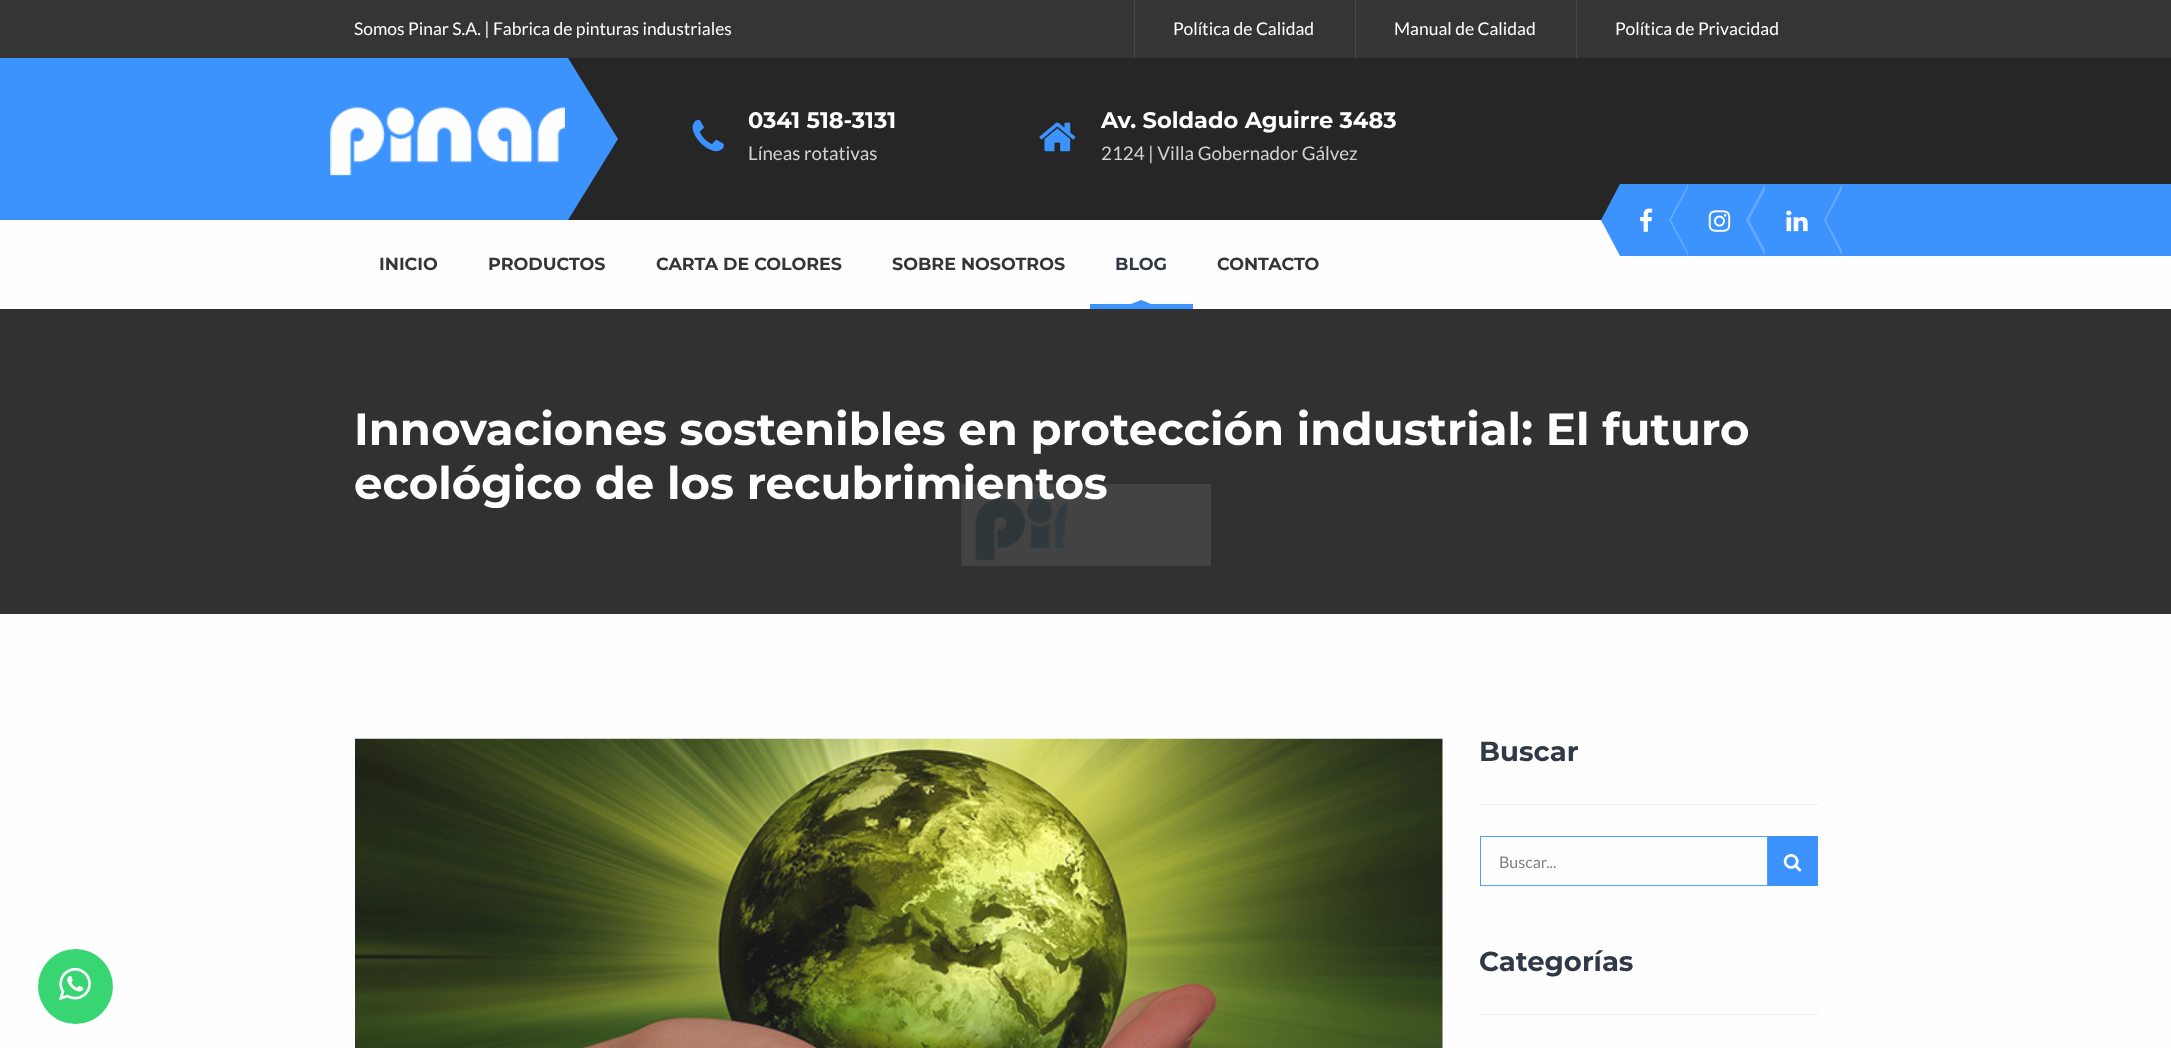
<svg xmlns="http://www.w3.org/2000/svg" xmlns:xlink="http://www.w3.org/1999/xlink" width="2171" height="1048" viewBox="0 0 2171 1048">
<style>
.cls-1{font:17.5px Lato;fill:#fefefe}
.cls-2{font:bold 22.5px Montserrat;fill:#fefefe}
.cls-3{font:18.75px Lato;fill:#d3d3d3}
.cls-4{font:bold 17.5px Montserrat;fill:#363636}
.cls-5{font:bold 17.5px Montserrat;fill:#313946}
.cls-6{font:bold 45px Montserrat;fill:#fefefe}
.cls-7{font:bold 27.5px Montserrat;fill:#313946}
.cls-8{font:16px Lato;fill:#818181}
</style>
<rect width="100%" height="100%" fill="#fefefe"/>
<rect fill="#353535" x="0" y="0" width="2171" height="58"/>
<rect fill="#484848" x="1134" y="0" width="1" height="58"/>
<rect fill="#484848" x="1355" y="0" width="1" height="58"/>
<rect fill="#484848" x="1576" y="0" width="1" height="58"/>
<rect fill="#262626" x="568" y="58" width="1603" height="162"/>
<rect fill="#3c93fe" x="0" y="58" width="568" height="162"/>
<image xlink:href="image0.png" x="330" y="107" width="235" height="69"/>
<path fill="#3c93fe" d="M568 220V58L618 139Z"/>
<image xlink:href="image1.png" x="692" y="119" width="32" height="33"/>
<image xlink:href="image2.png" x="1039" y="122" width="37" height="30"/>
<rect fill="#3c93fe" x="1620" y="184" width="551" height="72"/>
<path fill="#3c93fe" d="M1620 184V256L1601 220Z"/>
<image xlink:href="image3.png" x="1640" y="208" width="13" height="24"/>
<path fill="#63a9fe" d="M1688 184V256L1669 220Z"/>
<path fill="#3c93fe" d="M1690 184V256L1671 220Z"/>
<image xlink:href="image4.png" x="1708" y="210" width="23" height="22"/>
<path fill="#63a9fe" d="M1765 184V256L1746 220Z"/>
<path fill="#3c93fe" d="M1768 184V256L1749 220Z"/>
<image xlink:href="image5.png" x="1786" y="210" width="22" height="22"/>
<path fill="#63a9fe" d="M1842 184V256L1824 220Z"/>
<path fill="#3c93fe" d="M1845 184V256L1826 220Z"/>
<rect fill="#3c93fe" x="1090" y="304" width="103" height="5"/>
<path fill="#3c93fe" d="M1151 304H1131L1141 300Z"/>
<rect fill="#313131" x="0" y="309" width="2171" height="305"/>
<image xlink:href="image6.png" x="355" y="738" width="1088" height="310"/>
<rect fill="#efefef" x="1480" y="804" width="338" height="1"/>
<rect fill="none" stroke="#4f9efe" x="1480.5" y="836.5" width="287" height="49"/>
<rect fill="#3c93fe" x="1768" y="836" width="50" height="50"/>
<image xlink:href="image7.png" x="1783" y="854" width="19" height="18"/>
<rect fill="#efefef" x="1480" y="1014" width="338" height="1"/>
<circle fill="#38d673" cx="75.5" cy="986.5" r="37.5"/>
<image xlink:href="image9.png" x="58" y="967" width="33" height="34"/>
<text class="cls-1" x="354" y="35">Somos Pinar S.A. | Fabrica de pinturas industriales</text>
<text class="cls-1" x="1173" y="35">Política de Calidad</text>
<text class="cls-1" x="1394" y="35">Manual de Calidad</text>
<text class="cls-1" x="1615" y="35">Política de Privacidad</text>
<text class="cls-2" x="748" y="128">0341 518-3131</text>
<text class="cls-3" x="748" y="160">Líneas rotativas</text>
<text class="cls-2" x="1101" y="128">Av. Soldado Aguirre 3483</text>
<text class="cls-3" x="1101" y="160">2124 | Villa Gobernador Gálvez</text>
<text class="cls-4" x="379" y="270">INICIO</text>
<text class="cls-4" x="488" y="270">PRODUCTOS</text>
<text class="cls-4" x="656" y="270">CARTA DE COLORES</text>
<text class="cls-4" x="892" y="270">SOBRE NOSOTROS</text>
<text class="cls-5" x="1115" y="270">BLOG</text>
<text class="cls-4" x="1217" y="270">CONTACTO</text>
<text class="cls-6"><tspan x="354" y="445">Innovaciones sostenibles en protección industrial: El futuro</tspan><tspan x="354" y="499">ecológico de los recubrimientos</tspan></text>
<text class="cls-7" x="1479" y="761">Buscar</text>
<text class="cls-8" x="1499" y="868">Buscar...</text>
<text class="cls-7" x="1479" y="971">Categorías</text>
<image xlink:href="image8.png" x="961" y="484" width="250" height="82"/>
</svg>
